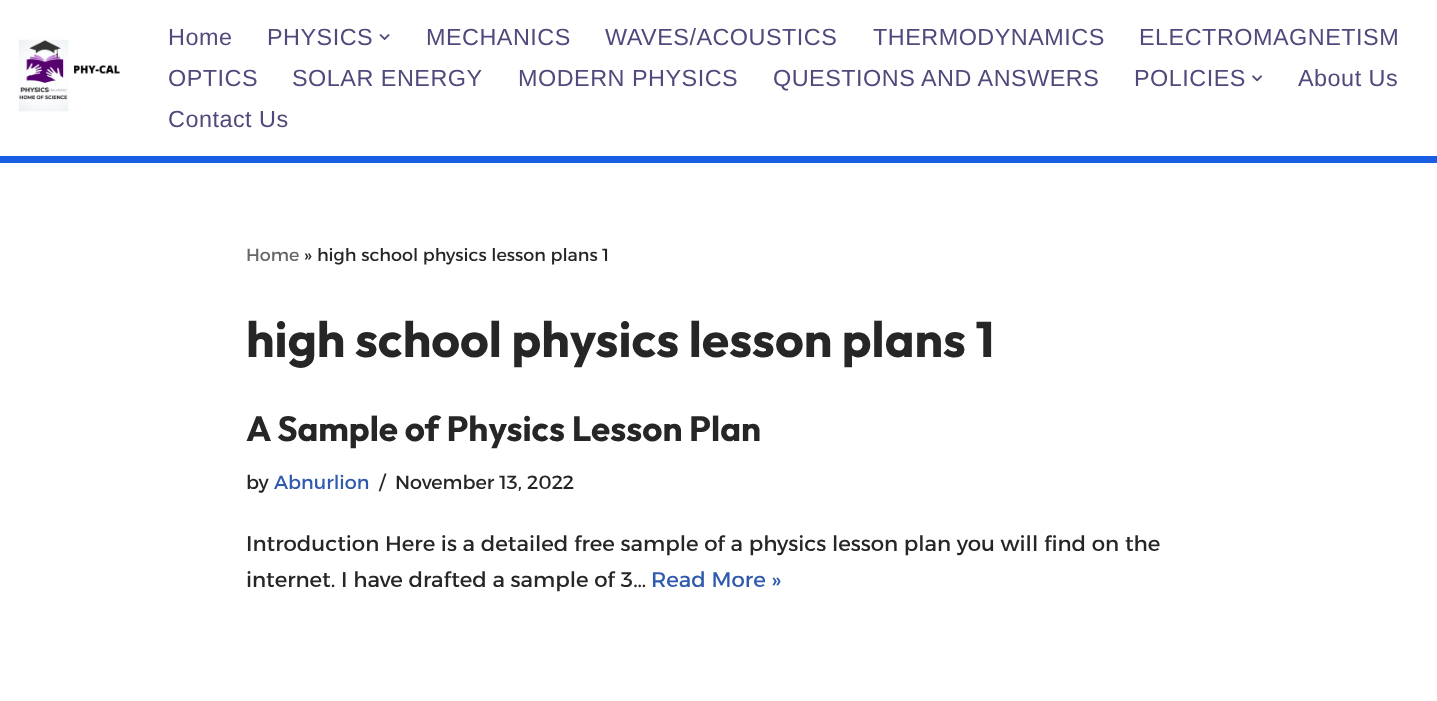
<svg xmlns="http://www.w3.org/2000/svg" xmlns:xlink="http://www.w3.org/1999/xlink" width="1437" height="701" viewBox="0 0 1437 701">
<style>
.cls-1{font:23.4px Liberation Sans;letter-spacing:0.5px;fill:#53487c}
.cls-2{font:17.5px Alexandria;fill:#676767}
.cls-3{font:17.5px Alexandria;fill:#272626}
.cls-4{font:bold 50px Outfit;fill:#272626}
.cls-5{font:bold 35px Outfit;fill:#272626}
.cls-6{font:19.1px Alexandria;fill:#272626}
.cls-7{font:19.1px Alexandria;fill:#2f5aae}
.cls-8{font:21.25px Alexandria;fill:#272626}
.cls-9{font:21.25px Alexandria;fill:#2f5aae}
</style>
<rect width="100%" height="100%" fill="#ffffff"/>
<rect fill="#195de3" x="0" y="156" width="1437" height="7"/>
<image xlink:href="image0.png" x="18" y="39" width="102" height="73"/>
<image xlink:href="image1.png" x="379" y="34" width="11" height="6"/>
<image xlink:href="image2.png" x="1252" y="75" width="10" height="7"/>
<text class="cls-1" x="168" y="45">Home</text>
<text class="cls-1" x="267" y="45">PHYSICS</text>
<text class="cls-1" x="426" y="45">MECHANICS</text>
<text class="cls-1" x="605" y="45">WAVES/ACOUSTICS</text>
<text class="cls-1" x="873" y="45">THERMODYNAMICS</text>
<text class="cls-1" x="1139" y="45">ELECTROMAGNETISM</text>
<text class="cls-1" x="168" y="86">OPTICS</text>
<text class="cls-1" x="292" y="86">SOLAR ENERGY</text>
<text class="cls-1" x="518" y="86">MODERN PHYSICS</text>
<text class="cls-1" x="773" y="86">QUESTIONS AND ANSWERS</text>
<text class="cls-1" x="1134" y="86">POLICIES</text>
<text class="cls-1" x="1298" y="86">About Us</text>
<text class="cls-1" x="168" y="127">Contact Us</text>
<text class="cls-2" x="246" y="261">Home</text>
<text class="cls-3" x="304" y="261">» high school physics lesson plans 1</text>
<text class="cls-4" x="246" y="357">high school physics lesson plans 1</text>
<text class="cls-5" x="246" y="441">A Sample of Physics Lesson Plan</text>
<text class="cls-6" x="246" y="489">by</text>
<text class="cls-7" x="274" y="489">Abnurlion</text>
<text class="cls-6" x="379" y="489">/</text>
<text class="cls-6" x="395" y="489">November 13, 2022</text>
<text class="cls-8"><tspan x="246" y="551">Introduction Here is a detailed free sample of a physics lesson plan you will find on the</tspan><tspan x="246" y="587">internet. I have drafted a sample of 3…</tspan></text>
<text class="cls-9" x="651" y="587">Read More »</text>
</svg>
